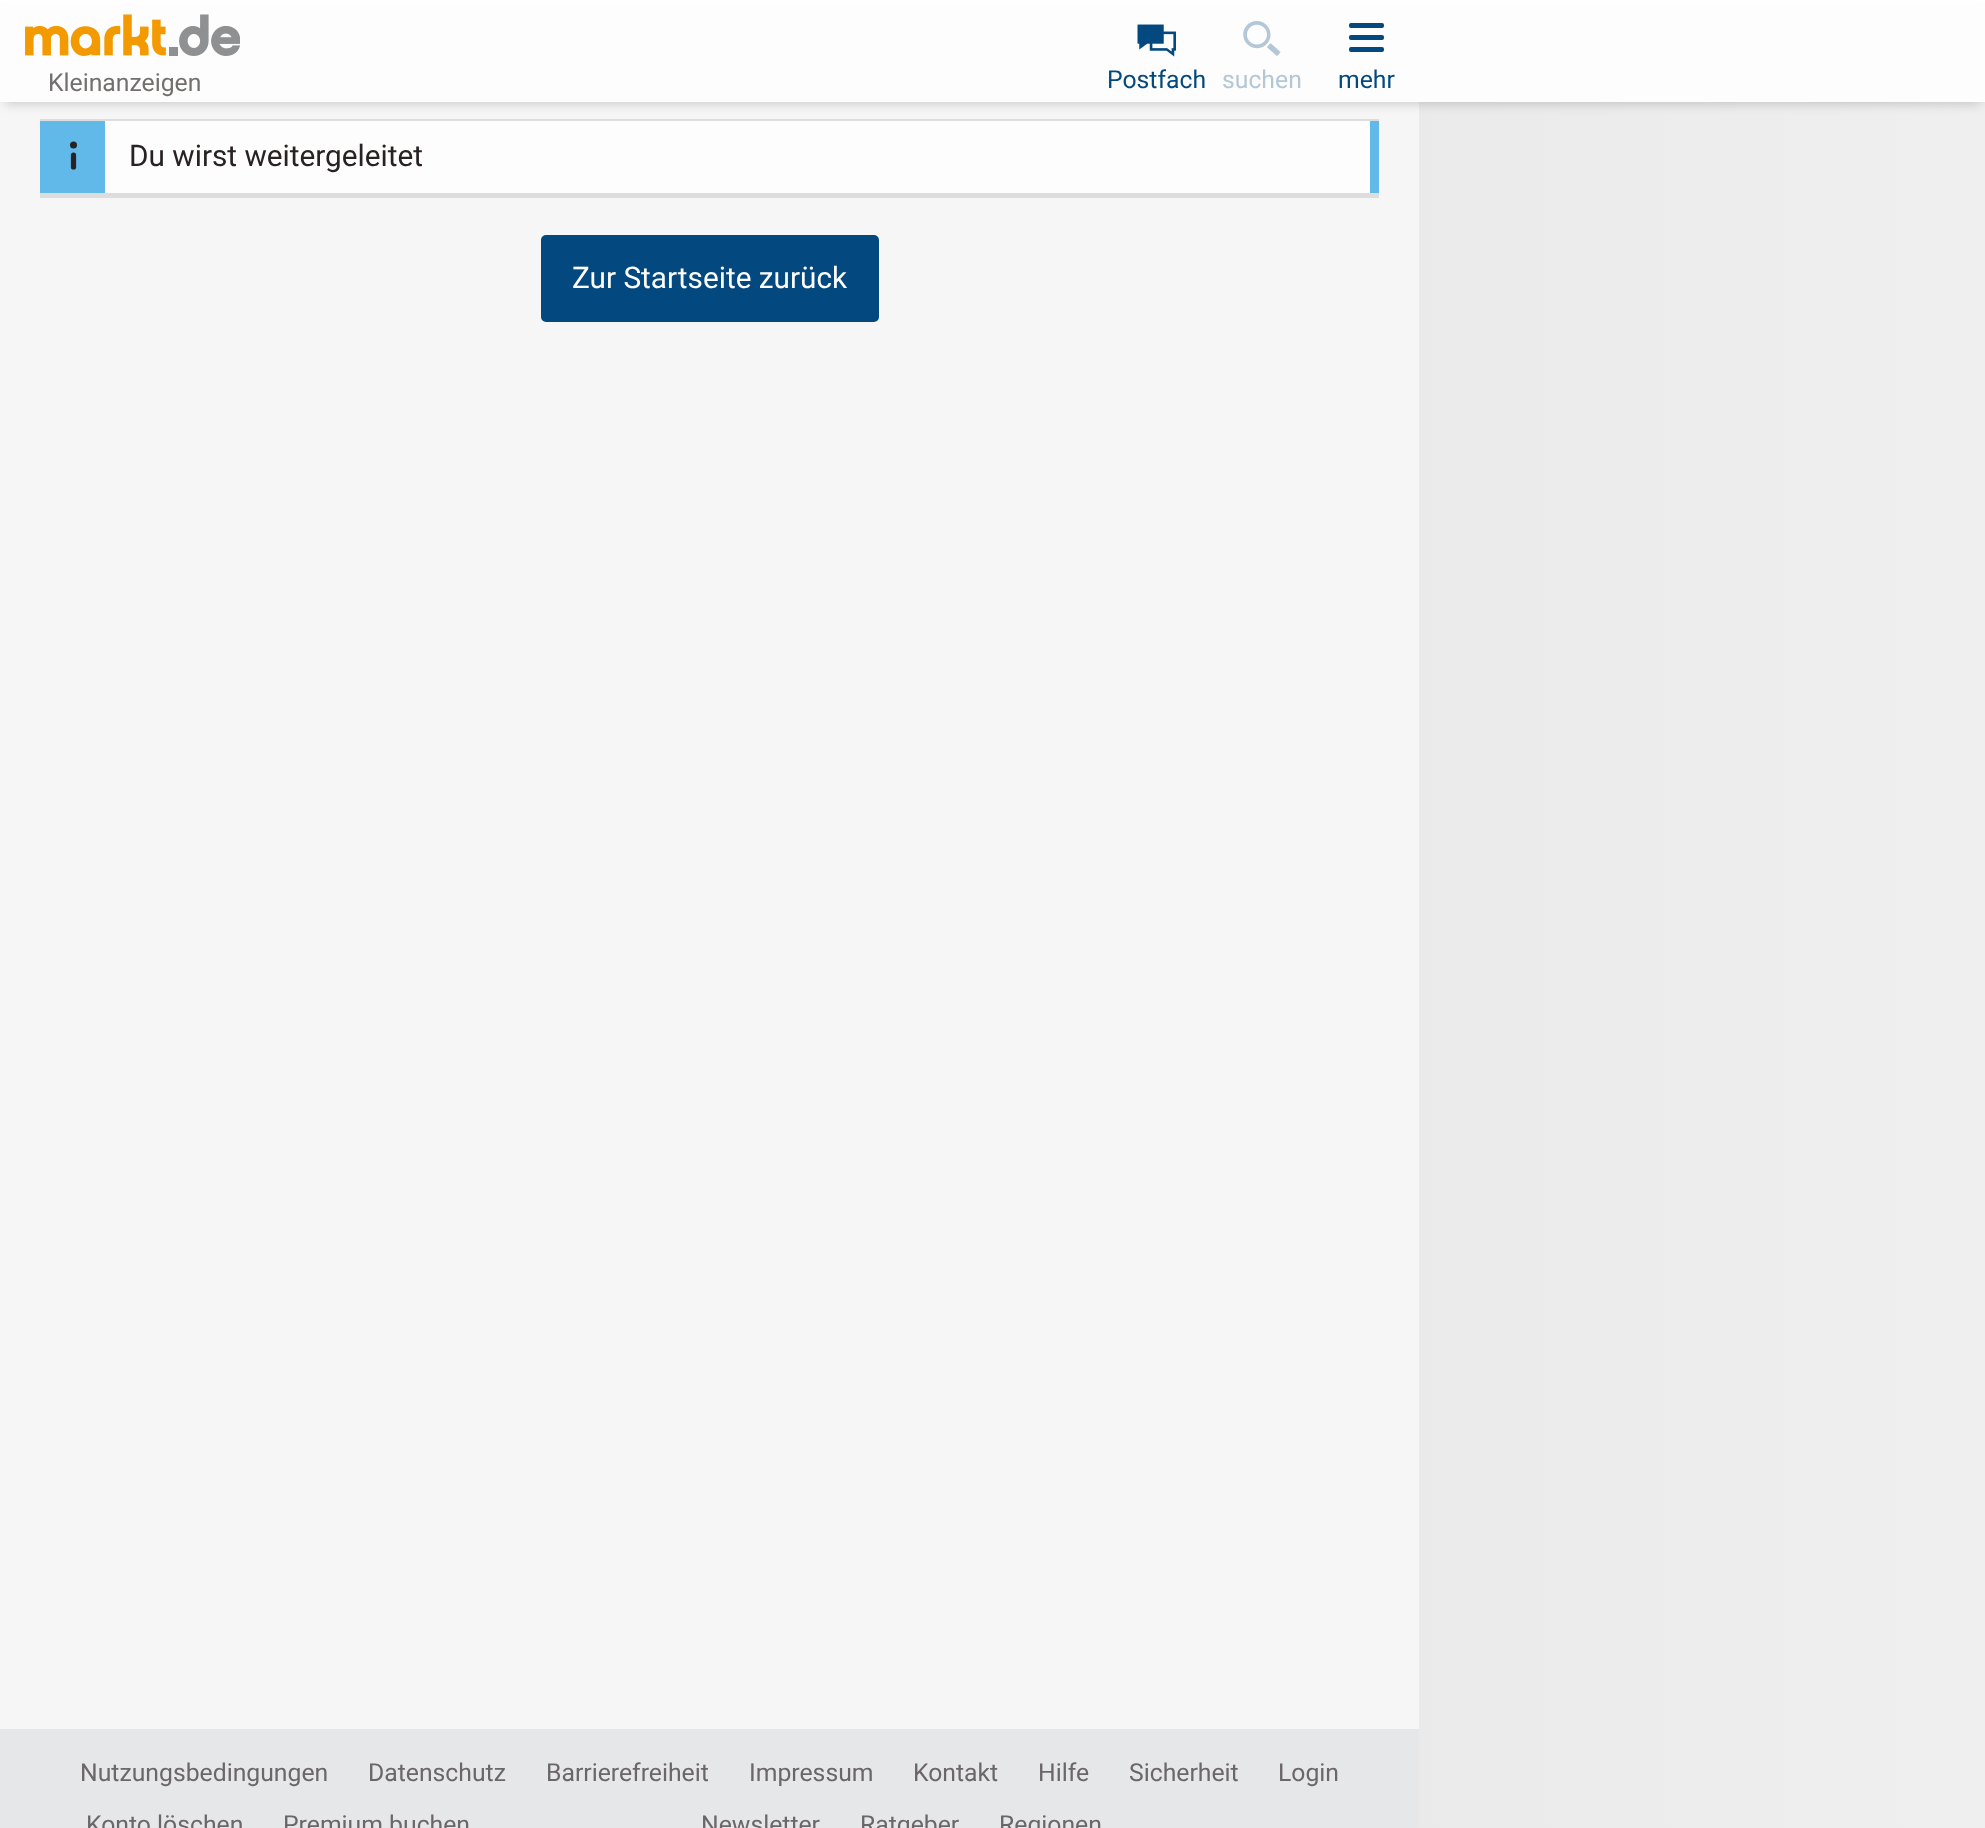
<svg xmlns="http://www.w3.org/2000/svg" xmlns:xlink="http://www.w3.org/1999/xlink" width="1985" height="1828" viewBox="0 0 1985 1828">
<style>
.cls-1{font:24.75px Roboto;fill:#736f6f}
.cls-2{font:24.75px Roboto;fill:#03497f}
.cls-3{font:24.75px Roboto;fill:#b3c7d7}
.cls-4{font:29.75px Roboto;fill:#282222}
.cls-5{font:29.75px Roboto;fill:#fefdfd}
.cls-6{font:24.75px Roboto;fill:#6b6768}
</style>
<defs>
<linearGradient id="g1" gradientUnits="userSpaceOnUse" x1="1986" y1="914" x2="0" y2="914"><stop offset="0" stop-color="#efefef"/><stop offset="1" stop-color="#dedede"/></linearGradient>
</defs>
<rect width="100%" height="100%" fill="#ffffff"/>
<rect fill="url(#g1)" x="1419" y="102" width="566" height="1726"/>
<rect fill="#f6f6f6" x="0" y="102" width="1419" height="1627"/>
<path fill="#dddddd" d="M40 119V191V121H1379V119Z"/>
<path fill="#dddddd" d="M40 126V198H1379V192H40Z"/>
<rect fill="#fefdfd" x="105" y="121" width="1265" height="72"/>
<rect fill="#60b9e9" x="1370" y="121" width="9" height="72"/>
<rect fill="#60b9e9" x="40" y="121" width="65" height="72"/>
<rect fill="#000000" fill-opacity="0.2" filter="blur(6px)" x="5" y="12" width="1976" height="91"/>
<rect fill="#fefdfd" x="0" y="3" width="1985" height="99"/>
<image xlink:href="image0.png" x="25" y="14" width="215" height="42"/>
<image xlink:href="image1.png" x="1137" y="24" width="39" height="33"/>
<image xlink:href="image2.png" x="1243" y="21" width="38" height="35"/>
<rect fill="#03497f" x="1349" y="23" width="35" height="5" rx="2"/>
<rect fill="#03497f" x="1349" y="35" width="35" height="5" rx="2"/>
<rect fill="#03497f" x="1349" y="47" width="35" height="5" rx="2"/>
<path fill="none" stroke="#282222" stroke-width="5.2" stroke-linecap="round" stroke-linejoin="round" d="M73.5 155V167"/>
<circle fill="#282222" cx="73.5" cy="145" r="3.5"/>
<rect fill="#03497f" stroke="#03497f" stroke-width="2" x="542" y="236" width="336" height="85" rx="4"/>
<rect fill="#e6e7e9" x="0" y="1729" width="1419" height="99"/>
<text class="cls-1" x="48" y="91">Kleinanzeigen</text>
<text class="cls-2" x="1107" y="88">Postfach</text>
<text class="cls-3" x="1222" y="88">suchen</text>
<text class="cls-2" x="1338" y="88">mehr</text>
<text class="cls-4" x="129" y="166">Du wirst weitergeleitet</text>
<text class="cls-5" x="572" y="288">Zur Startseite zurück</text>
<text class="cls-6" x="80" y="1781">Nutzungsbedingungen</text>
<text class="cls-6" x="368" y="1781">Datenschutz</text>
<text class="cls-6" x="546" y="1781">Barrierefreiheit</text>
<text class="cls-6" x="749" y="1781">Impressum</text>
<text class="cls-6" x="913" y="1781">Kontakt</text>
<text class="cls-6" x="1038" y="1781">Hilfe</text>
<text class="cls-6" x="1129" y="1781">Sicherheit</text>
<text class="cls-6" x="1278" y="1781">Login</text>
<text class="cls-6" x="86" y="1833">Konto löschen</text>
<text class="cls-6" x="283" y="1833">Premium buchen</text>
<text class="cls-6" x="701" y="1833">Newsletter</text>
<text class="cls-6" x="860" y="1833">Ratgeber</text>
<text class="cls-6" x="999" y="1833">Regionen</text>
</svg>
